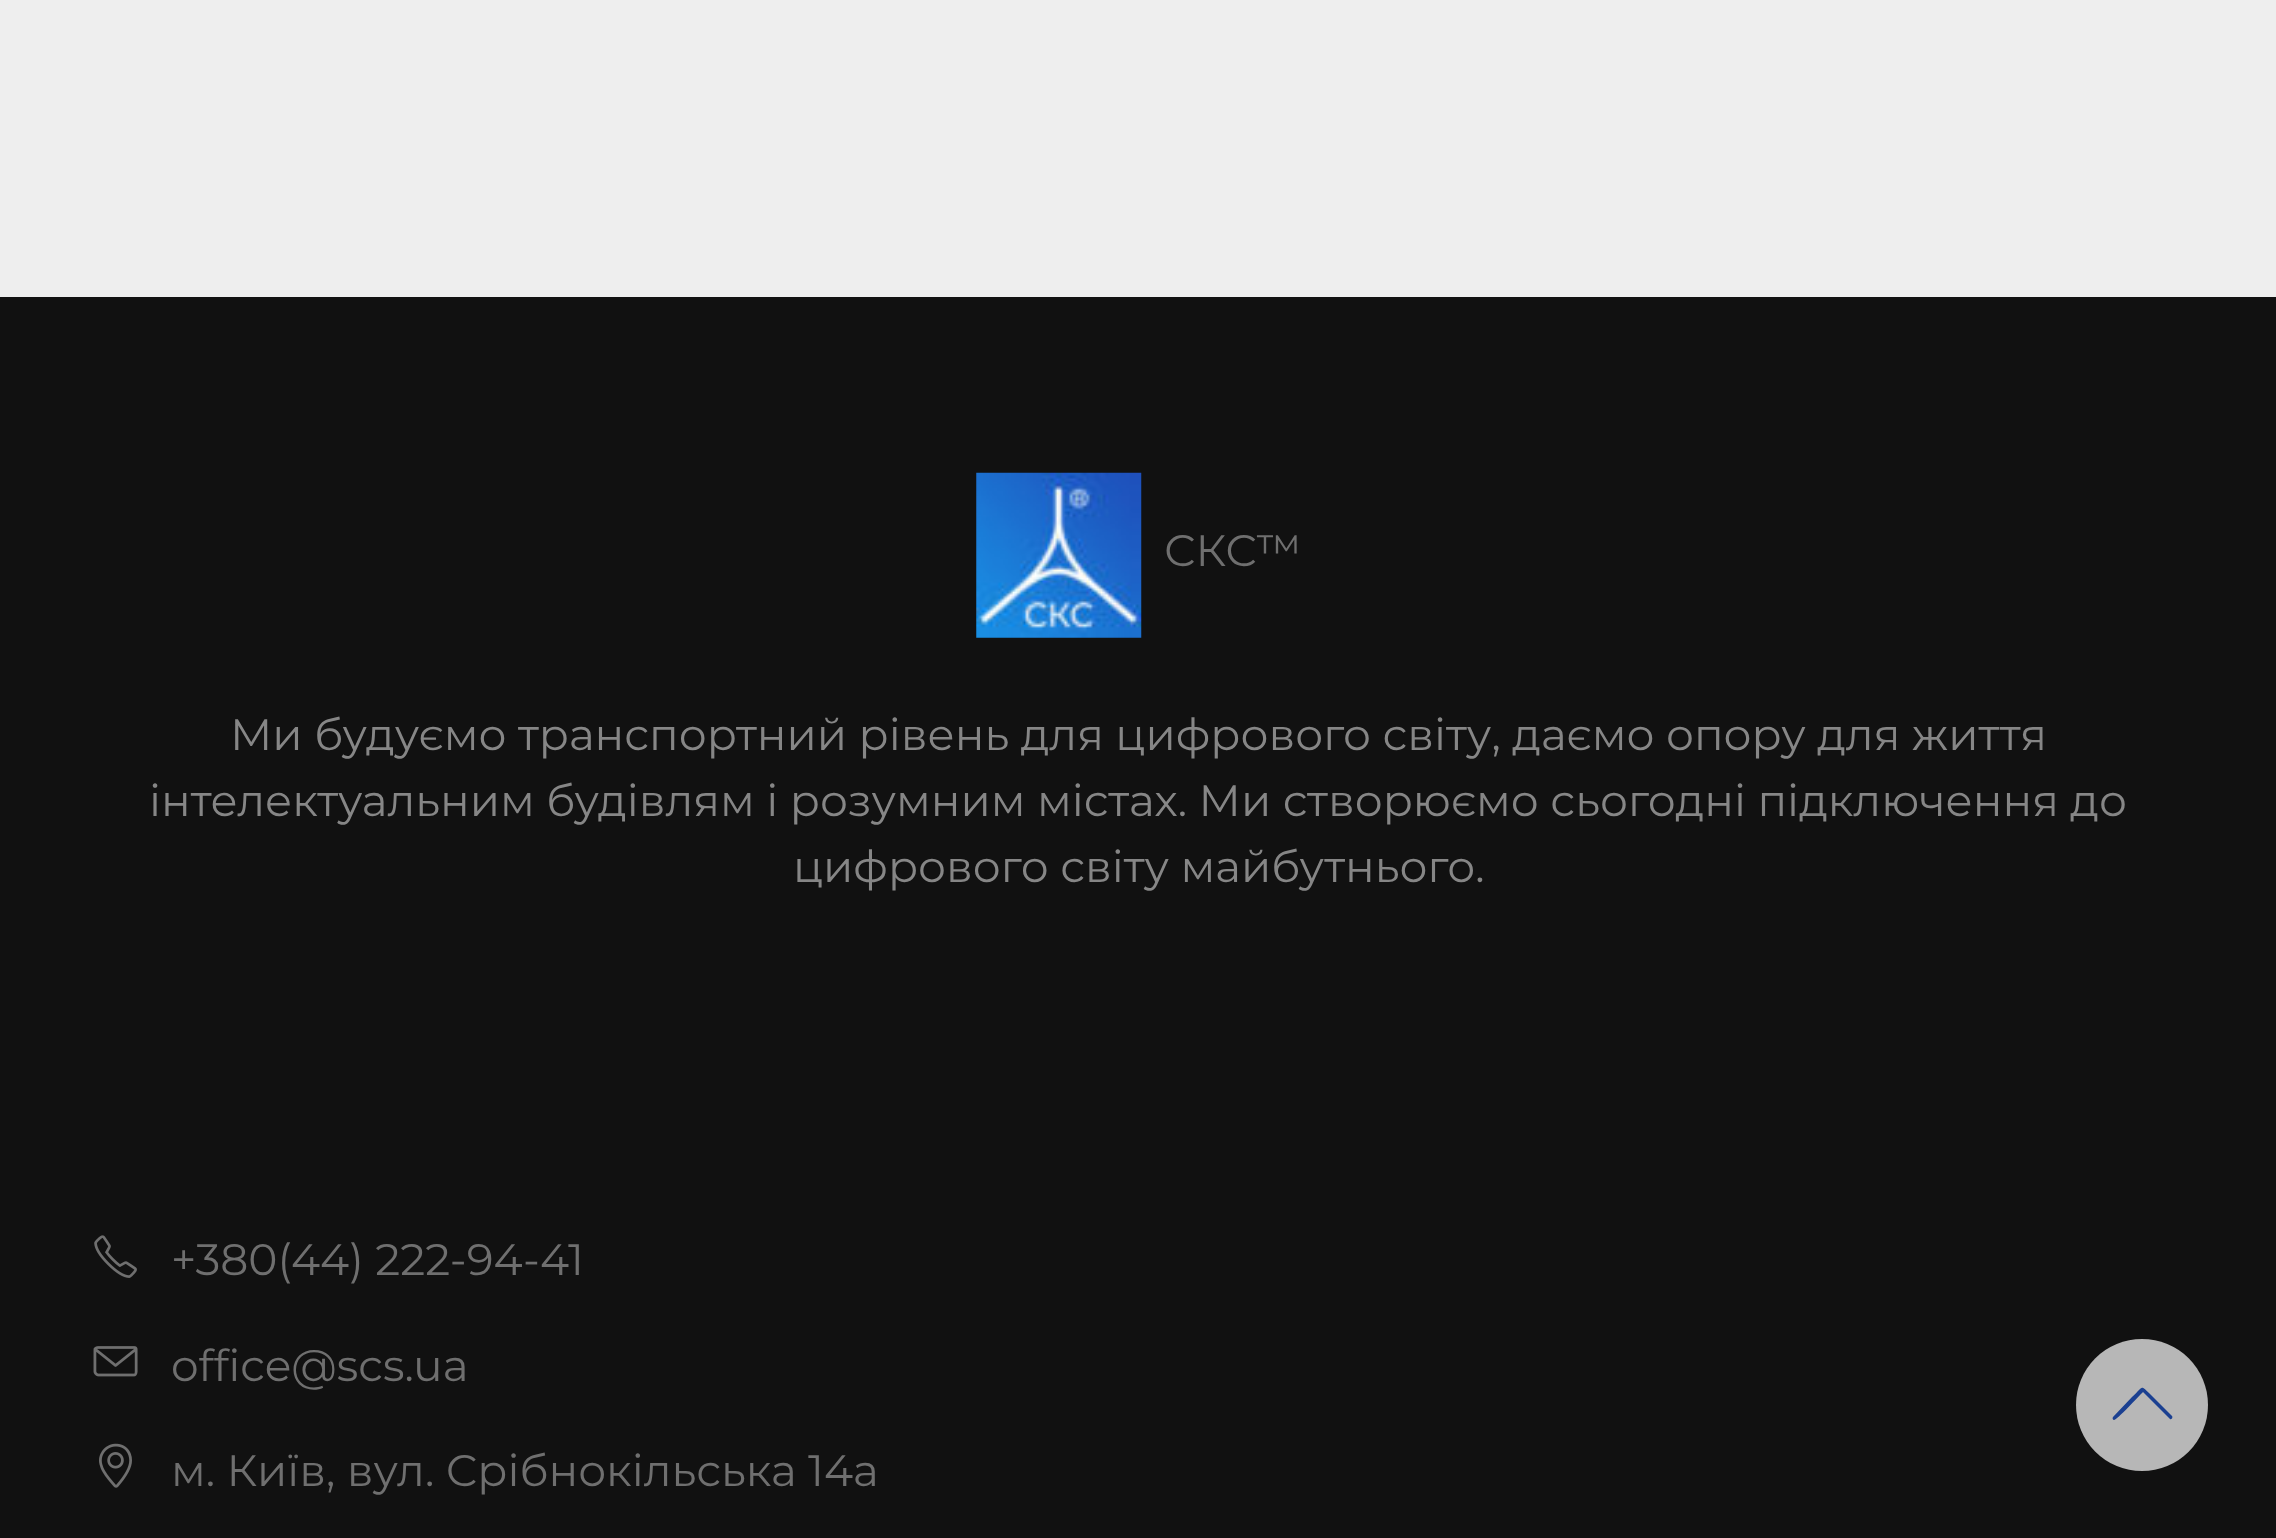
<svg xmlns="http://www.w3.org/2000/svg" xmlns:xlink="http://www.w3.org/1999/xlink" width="2276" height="1538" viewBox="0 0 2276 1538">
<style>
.cls-1{font:44px Montserrat;fill:#6f6f6f}
.cls-2{font:44px Montserrat;fill:#868686}
</style>
<rect width="100%" height="100%" fill="#eeeeee"/>
<rect fill="#111111" x="0" y="297" width="2276" height="1241"/>
<image xlink:href="image0.png" x="976" y="472" width="166" height="166"/>
<image xlink:href="image1.png" x="94" y="1235" width="43" height="43"/>
<image xlink:href="image2.png" x="93" y="1346" width="45" height="31"/>
<image xlink:href="image3.png" x="99" y="1443" width="33" height="45"/>
<circle fill="#b7b7b7" cx="2142" cy="1405" r="66"/>
<path fill="#1b4091" d="M2113 1417C2112 1418 2113 1420 2114 1420C2117 1420 2139 1396 2143 1392L2170 1419C2172 1420 2173 1417 2172 1416L2149 1393C2140 1384 2143 1387 2132 1397Z"/>
<text class="cls-1" x="1164" y="566">СКС™</text>
<text class="cls-2" x="230" y="750">Ми будуємо транспортний рівень для цифрового світу, даємо опору для життя</text>
<text class="cls-2" x="149" y="816">інтелектуальним будівлям і розумним містах. Ми створюємо сьогодні підключення до</text>
<text class="cls-2" x="793" y="882">цифрового світу майбутнього.</text>
<text class="cls-1" x="171" y="1275">+380(44) 222-94-41</text>
<text class="cls-1" x="171" y="1381">office@scs.ua</text>
<text class="cls-1" x="171" y="1486">м. Київ, вул. Срібнокільська 14а</text>
</svg>
